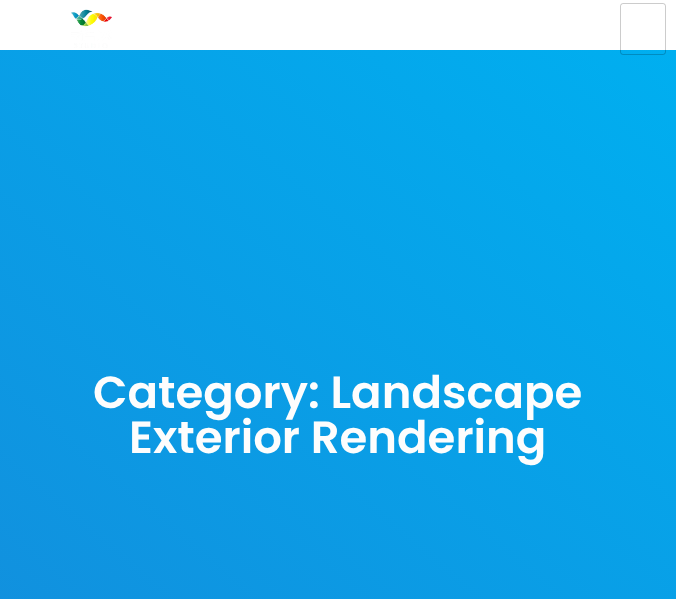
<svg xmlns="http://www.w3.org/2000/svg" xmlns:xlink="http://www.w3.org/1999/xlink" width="676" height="599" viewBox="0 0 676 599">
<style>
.cls-1{font:600 45px Poppins;fill:#fdfdfd}
</style>
<defs>
<linearGradient id="g1" gradientUnits="userSpaceOnUse" x1="-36" y1="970" x2="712" y2="80"><stop offset="0" stop-color="#1786d8"/><stop offset="1" stop-color="#00aff0"/></linearGradient>
</defs>
<rect width="100%" height="100%" fill="#ffffff"/>
<image xlink:href="image0.png" x="71" y="9" width="41" height="39"/>
<rect fill="url(#g1)" x="0" y="50" width="676" height="549"/>
<rect fill="none" stroke="#000000" stroke-opacity="0.2" x="620.5" y="3.5" width="45" height="51" rx="2.5"/>
<text class="cls-1" x="93" y="408">Category: Landscape</text>
<text class="cls-1" x="129" y="453">Exterior Rendering</text>
</svg>
